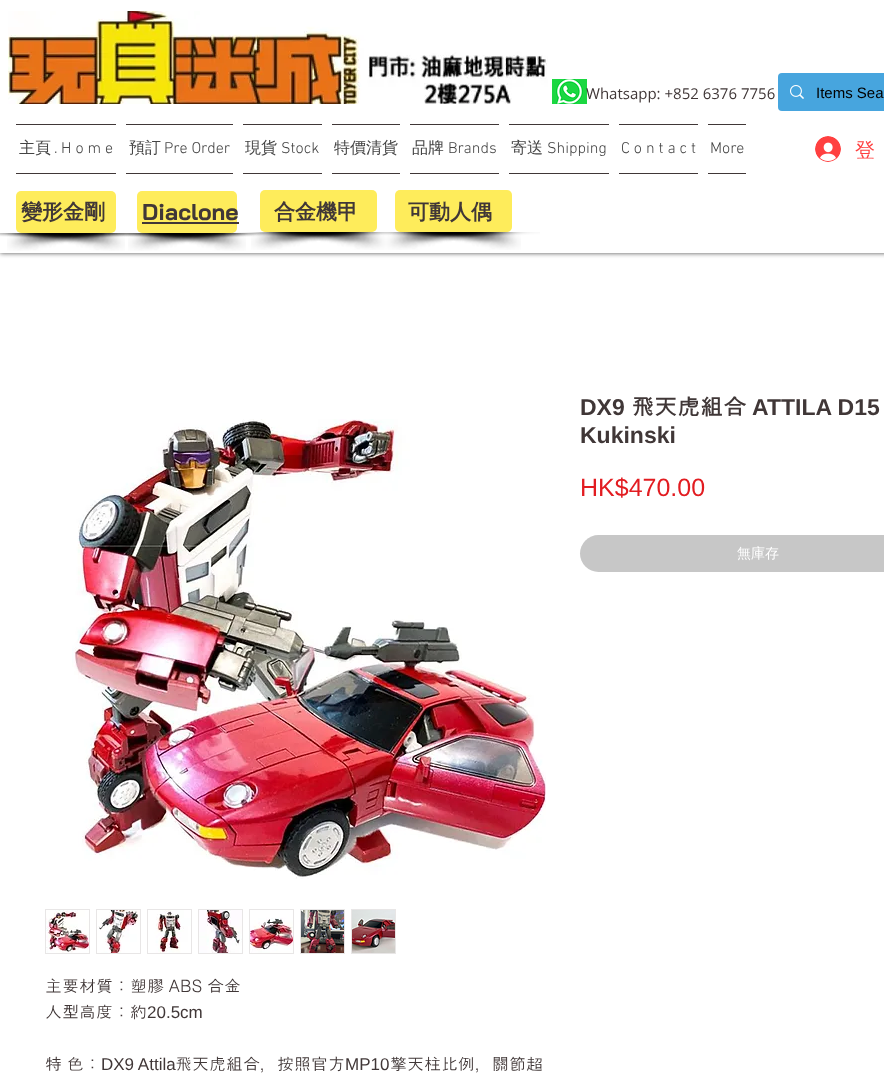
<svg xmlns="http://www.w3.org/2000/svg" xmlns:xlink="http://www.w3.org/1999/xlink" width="884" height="1089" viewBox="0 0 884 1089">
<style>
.cls-1{font:15px Open Sans;fill:#403737}
.cls-2{font:15px Liberation Sans;fill:#000000}
.cls-3{font:500 16px WenQuanYi Zen Hei;fill:#444444}
.cls-4{font:300 16px 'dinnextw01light';fill:#444444}
.cls-5{font:500 20px WenQuanYi Zen Hei;fill:#ff4040}
.cls-6{font:bold 21px WenQuanYi Zen Hei;fill:#403737}
.cls-7{font:bold 23px Bai Jamjuree;fill:#403737}
.cls-8{font:bold 23px Liberation Sans;fill:#403737}
.cls-9{font:bold 23px Dotum;fill:#403737}
.cls-10{font:25px Liberation Sans;fill:#e21c21}
.cls-11{font:500 14px WenQuanYi Zen Hei;fill:#ffffff}
.cls-12{font:17px Dotum;fill:#403737}
.cls-13{font:17px Liberation Sans;fill:#403737}
</style>
<rect width="100%" height="100%" fill="#ffffff"/>
<rect fill="#000000" fill-opacity="0.7" filter="blur(2.5px)" x="0" y="0" width="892" height="253"/>
<rect fill="#ffffff" x="0" y="0" width="884" height="253"/>
<image xlink:href="image0.png" x="8" y="11" width="540" height="93"/>
<image xlink:href="image1.png" x="552" y="79" width="35" height="25"/>
<rect fill="#47a5de" x="778" y="73" width="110" height="38" rx="4"/>
<image xlink:href="image2.png" x="790" y="85" width="14" height="14"/>
<rect fill="#403737" x="16" y="124" width="100" height="1"/>
<rect fill="#403737" x="16" y="173" width="100" height="1"/>
<rect fill="#403737" x="126" y="124" width="107" height="1"/>
<rect fill="#403737" x="126" y="173" width="107" height="1"/>
<rect fill="#403737" x="243" y="124" width="79" height="1"/>
<rect fill="#403737" x="243" y="173" width="79" height="1"/>
<rect fill="#403737" x="332" y="124" width="68" height="1"/>
<rect fill="#403737" x="332" y="173" width="68" height="1"/>
<rect fill="#403737" x="410" y="124" width="89" height="1"/>
<rect fill="#403737" x="410" y="173" width="89" height="1"/>
<rect fill="#403737" x="509" y="124" width="100" height="1"/>
<rect fill="#403737" x="509" y="173" width="100" height="1"/>
<rect fill="#403737" x="619" y="124" width="79" height="1"/>
<rect fill="#403737" x="619" y="173" width="79" height="1"/>
<rect fill="#403737" x="708" y="124" width="38" height="1"/>
<rect fill="#403737" x="708" y="173" width="38" height="1"/>
<image xlink:href="image3.png" x="815" y="136" width="26" height="26"/>
<rect fill="#feec5b" x="16" y="191" width="100" height="42" rx="5"/>
<image xlink:href="image5.png" x="7" y="233" width="154" height="18"/>
<image xlink:href="image4.png" x="0" y="233" width="125" height="18"/>
<rect fill="#feec5b" x="137" y="191" width="100" height="42" rx="5"/>
<rect fill="#403737" x="142" y="222" width="97" height="2"/>
<image xlink:href="image7.png" x="128" y="233" width="154" height="18"/>
<image xlink:href="image6.png" x="108" y="233" width="138" height="18"/>
<rect fill="#feec5b" x="260" y="190" width="117" height="42" rx="5"/>
<image xlink:href="image9.png" x="251" y="232" width="154" height="18"/>
<image xlink:href="image8.png" x="232" y="232" width="154" height="18"/>
<rect fill="#feec5b" x="395" y="190" width="117" height="42" rx="5"/>
<image xlink:href="image11.png" x="386" y="232" width="154" height="18"/>
<image xlink:href="image10.png" x="372" y="232" width="149" height="18"/>
<rect fill="#c7c7c7" x="580" y="535" width="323" height="37" rx="18.5"/>
<image xlink:href="image12.png" x="72" y="419" width="474" height="460"/>
<rect fill="#e8e6e6" x="45" y="909" width="45" height="45"/>
<image xlink:href="image13.png" x="46" y="910" width="43" height="43"/>
<rect fill="#e8e6e6" x="96" y="909" width="45" height="45"/>
<image xlink:href="image14.png" x="97" y="910" width="43" height="43"/>
<rect fill="#e8e6e6" x="147" y="909" width="45" height="45"/>
<image xlink:href="image15.png" x="148" y="910" width="43" height="43"/>
<rect fill="#e8e6e6" x="198" y="909" width="45" height="45"/>
<image xlink:href="image16.png" x="199" y="910" width="43" height="43"/>
<rect fill="#e8e6e6" x="249" y="909" width="45" height="45"/>
<image xlink:href="image17.png" x="250" y="910" width="43" height="43"/>
<rect fill="#e8e6e6" x="300" y="909" width="45" height="45"/>
<image xlink:href="image18.png" x="301" y="910" width="43" height="43"/>
<rect fill="#e8e6e6" x="351" y="909" width="45" height="45"/>
<image xlink:href="image19.png" x="352" y="910" width="43" height="43"/>
<text class="cls-1" x="586" y="99">Whatsapp: +852 6376 7756</text>
<text class="cls-2" x="816" y="98">Items Sea</text>
<text class="cls-3" x="19" y="153">主頁</text>
<text class="cls-4" x="54" y="153">. H o m e</text>
<text class="cls-3" x="129" y="153">預訂</text>
<text class="cls-4" x="164" y="153">Pre Order</text>
<text class="cls-3" x="245" y="153">現貨</text>
<text class="cls-4" x="281" y="153">Stock</text>
<text class="cls-3" x="334" y="153">特價清貨</text>
<text class="cls-3" x="412" y="153">品牌</text>
<text class="cls-4" x="448" y="153">Brands</text>
<text class="cls-3" x="511" y="153">寄送</text>
<text class="cls-4" x="547" y="153">Shipping</text>
<text class="cls-4" x="621" y="153">C o n t a c t</text>
<text class="cls-4" x="710" y="153">More</text>
<text class="cls-5" x="855" y="157">登</text>
<text class="cls-6" x="21" y="219">變形金剛</text>
<text class="cls-7" x="142" y="220">Diaclone</text>
<text class="cls-6" x="274" y="219">合金機甲</text>
<text class="cls-6" x="408" y="219">可動人偶</text>
<text class="cls-8" x="580" y="415">DX9</text>
<text class="cls-9" x="631" y="415">飛天虎組合</text>
<text class="cls-8" x="752" y="415">ATTILA D15</text>
<text class="cls-8" x="580" y="443">Kukinski</text>
<text class="cls-10" x="580" y="496">HK$470.00</text>
<text class="cls-11" x="737" y="558">無庫存</text>
<text class="cls-12"><tspan x="45" y="992" word-spacing="-1">主要材質：塑膠 ABS 合金</tspan><tspan x="45" y="1018">人型高度：約</tspan></text>
<text class="cls-13" x="147" y="1018">20.5cm</text>
<text class="cls-12" x="45" y="1070">特</text>
<text class="cls-12" x="67" y="1070">色：</text>
<text class="cls-13" x="101" y="1070">DX9 Attila</text>
<text class="cls-12" x="175" y="1070">飛天虎組合，按照官方</text>
<text class="cls-13" x="345" y="1070">MP10</text>
<text class="cls-12" x="390" y="1070">擎天柱比例，關節超</text>
</svg>
